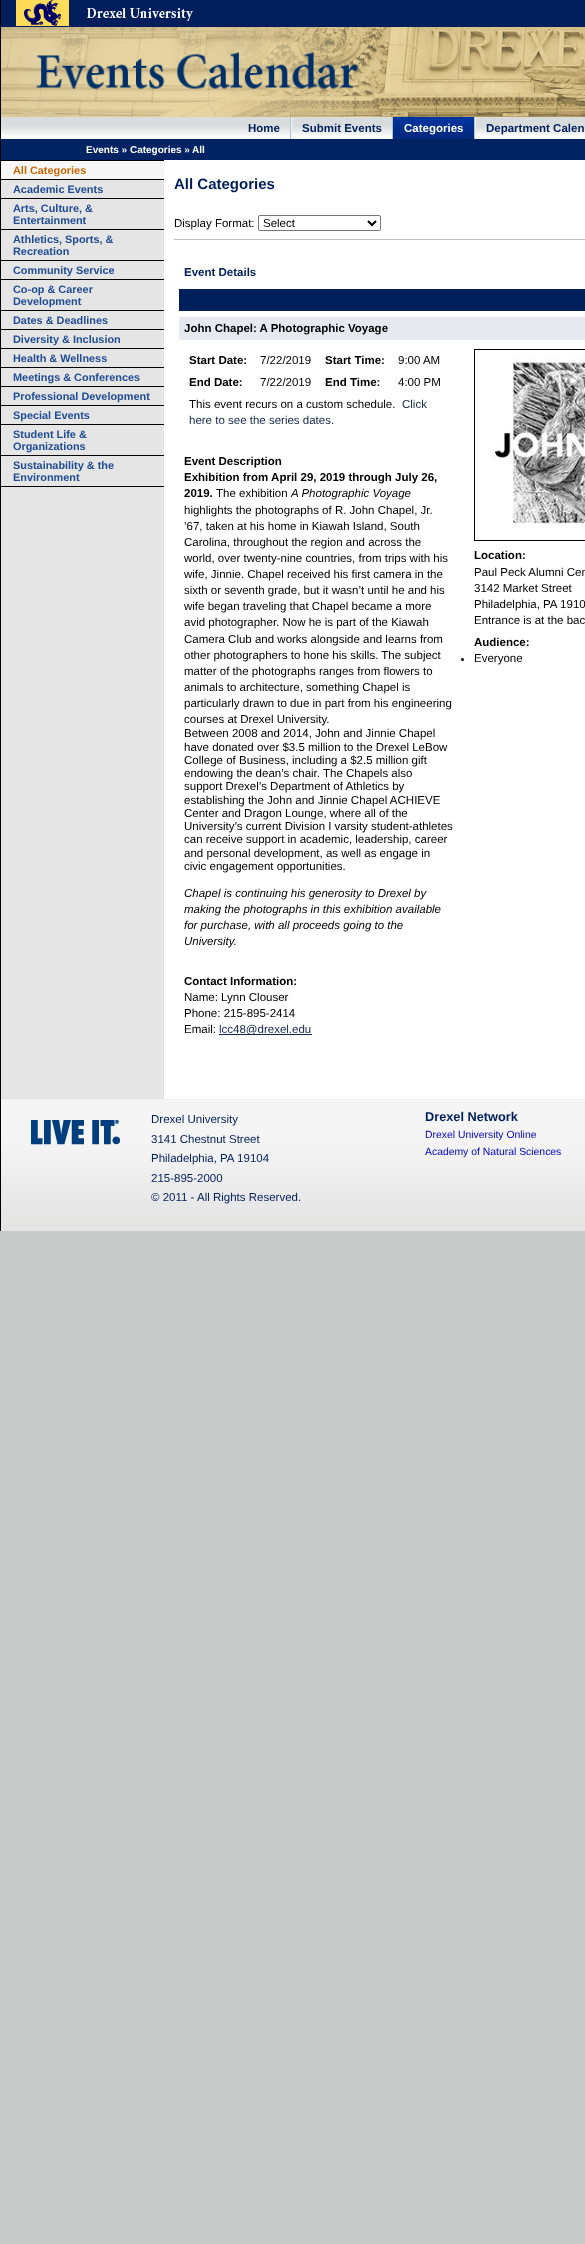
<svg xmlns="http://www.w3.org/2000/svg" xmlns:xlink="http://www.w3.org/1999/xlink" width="585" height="2244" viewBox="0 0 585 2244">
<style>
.cls-1{font:bold 11.5px Liberation Sans;fill:#001e5c}
.cls-2{font:bold 11.5px Liberation Sans;fill:#ffffff}
.cls-3{font:bold 10px Liberation Sans;fill:#ffffff}
.cls-4{font:bold 10.9px Liberation Sans;fill:#cc6600}
.cls-5{font:bold 10.9px Liberation Sans;fill:#204c95}
.cls-6{font:bold 15px Liberation Sans;fill:#001e5c}
.cls-7{font:11.5px Liberation Sans;fill:#000000}
.cls-8{font:bold 11.5px Liberation Sans;fill:#000000}
.cls-9{font:11.5px Liberation Sans;fill:#15274d}
.cls-10{font:italic 11.5px Liberation Sans;fill:#000000}
.cls-11{font:11.5px Liberation Sans;fill:#001e5c}
.cls-12{font:bold 12.75px Liberation Sans;fill:#001e5c}
.cls-13{font:10.4px Liberation Sans;fill:#0202c7}
</style>
<rect width="100%" height="100%" fill="#c9caca"/>
<rect fill="#000000" x="0" y="0" width="1" height="1231"/>
<rect fill="#001e5c" x="1" y="0" width="584" height="27"/>
<image xlink:href="image0.png" x="16" y="0" width="53" height="26"/>
<image xlink:href="image1.png" x="87" y="8" width="106" height="13"/>
<image xlink:href="image2.png" x="1" y="27" width="584" height="90"/>
<image xlink:href="image3.png" x="36" y="52" width="322" height="37"/>
<rect fill="#fbfcfc" x="1" y="135" width="584" height="4"/>
<image xlink:href="image4.png" x="1" y="117" width="584" height="18"/>
<rect fill="#b0c1ca" x="290" y="117" width="1" height="22"/>
<rect fill="#b0c1ca" x="392" y="117" width="1" height="22"/>
<rect fill="#f3f5f5" x="291" y="117" width="1" height="22"/>
<image xlink:href="image5.png" x="394" y="117" width="80" height="22"/>
<rect fill="#b0c1ca" x="474" y="117" width="1" height="22"/>
<rect fill="#002e8d" x="393" y="117" width="1" height="22"/>
<rect fill="#f3f5f5" x="475" y="117" width="1" height="22"/>
<rect fill="#002364" x="1" y="139" width="584" height="21"/>
<image xlink:href="image6.png" x="1" y="160" width="584" height="939"/>
<rect fill="#000000" x="1" y="160" width="163" height="1"/>
<rect fill="#000000" x="1" y="179" width="163" height="1"/>
<rect fill="#f7f7f7" x="1" y="161" width="163" height="18"/>
<rect fill="#000000" x="1" y="198" width="163" height="1"/>
<rect fill="#000000" x="1" y="229" width="163" height="1"/>
<rect fill="#000000" x="1" y="260" width="163" height="1"/>
<rect fill="#000000" x="1" y="279" width="163" height="1"/>
<rect fill="#000000" x="1" y="310" width="163" height="1"/>
<rect fill="#000000" x="1" y="329" width="163" height="1"/>
<rect fill="#000000" x="1" y="348" width="163" height="1"/>
<rect fill="#000000" x="1" y="367" width="163" height="1"/>
<rect fill="#000000" x="1" y="386" width="163" height="1"/>
<rect fill="#000000" x="1" y="405" width="163" height="1"/>
<rect fill="#000000" x="1" y="424" width="163" height="1"/>
<rect fill="#000000" x="1" y="455" width="163" height="1"/>
<rect fill="#000000" x="1" y="486" width="163" height="1"/>
<rect fill="#c1c1c1" x="174" y="239" width="411" height="1"/>
<rect fill="none" stroke="#767676" x="258.5" y="215.5" width="122" height="15" rx="1.5"/>
<path fill="none" stroke="#000000" stroke-width="2" d="M368 221L372 225L376 221"/>
<rect fill="#00205b" x="179" y="289" width="406" height="22"/>
<rect fill="#e6e9ef" x="179" y="317" width="406" height="23"/>
<rect fill="#15274d" x="219" y="1034" width="93" height="1"/>
<rect fill="none" stroke="#000000" x="474.5" y="349.5" width="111" height="191"/>
<image xlink:href="image7.png" x="490" y="358" width="95" height="166"/>
<circle fill="#000000" cx="462.5" cy="659.5" r="1.5"/>
<rect fill="#eeeeee" x="1" y="1099" width="584" height="1"/>
<image xlink:href="image8.png" x="1" y="1100" width="584" height="131"/>
<image xlink:href="image9.png" x="31" y="1120" width="89" height="25"/>
<text class="cls-1" x="248" y="132">Home</text>
<text class="cls-1" x="302" y="132">Submit Events</text>
<text class="cls-2" x="404" y="132">Categories</text>
<text class="cls-1" x="486" y="132">Department Calen</text>
<text class="cls-3" x="86" y="153">Events » Categories »</text>
<text class="cls-3" x="192" y="153">All</text>
<text class="cls-4" x="13" y="174">All Categories</text>
<text class="cls-5"><tspan x="13" y="193">Academic Events</tspan><tspan x="13" y="212">Arts, Culture, &amp;</tspan><tspan x="13" y="224">Entertainment</tspan><tspan x="13" y="243">Athletics, Sports, &amp;</tspan><tspan x="13" y="255">Recreation</tspan><tspan x="13" y="274">Community Service</tspan><tspan x="13" y="293">Co-op &amp; Career</tspan><tspan x="13" y="305">Development</tspan><tspan x="13" y="324">Dates &amp; Deadlines</tspan><tspan x="13" y="343">Diversity &amp; Inclusion</tspan><tspan x="13" y="362">Health &amp; Wellness</tspan><tspan x="13" y="381">Meetings &amp; Conferences</tspan><tspan x="13" y="400">Professional Development</tspan><tspan x="13" y="419">Special Events</tspan><tspan x="13" y="438">Student Life &amp;</tspan><tspan x="13" y="450">Organizations</tspan><tspan x="13" y="469">Sustainability &amp; the</tspan><tspan x="13" y="481">Environment</tspan></text>
<text class="cls-6" x="174" y="189">All Categories</text>
<text class="cls-7" x="174" y="227">Display Format:</text>
<text class="cls-7" x="263" y="227">Select</text>
<text class="cls-1" x="184" y="276">Event Details</text>
<text class="cls-8" x="184" y="332">John Chapel: A Photographic Voyage</text>
<text class="cls-8" x="189" y="364">Start Date:</text>
<text class="cls-7" x="260" y="364">7/22/2019</text>
<text class="cls-8" x="325" y="364">Start Time:</text>
<text class="cls-7" x="398" y="364">9:00 AM</text>
<text class="cls-8" x="189" y="386">End Date:</text>
<text class="cls-7" x="260" y="386">7/22/2019</text>
<text class="cls-8" x="325" y="386">End Time:</text>
<text class="cls-7" x="398" y="386">4:00 PM</text>
<text class="cls-7" x="189" y="408">This event recurs on a custom schedule.</text>
<text class="cls-9" x="402" y="408">Click</text>
<text class="cls-9" x="189" y="424">here to see the series dates.</text>
<text class="cls-8"><tspan x="184" y="465">Event Description</tspan><tspan x="184" y="481">Exhibition from April 29, 2019 through July 26,</tspan><tspan x="184" y="497">2019.</tspan></text>
<text class="cls-7" x="216" y="497">The exhibition</text>
<text class="cls-10" x="291" y="497">A Photographic Voyage</text>
<text class="cls-7"><tspan x="184" y="514">highlights the photographs of R. John Chapel, Jr.</tspan><tspan x="184" y="530">’67, taken at his home in Kiawah Island, South</tspan><tspan x="184" y="546">Carolina, throughout the region and across the</tspan><tspan x="184" y="562">world, over twenty-nine countries, from trips with his</tspan><tspan x="184" y="578">wife, Jinnie. Chapel received his first camera in the</tspan><tspan x="184" y="594">sixth or seventh grade, but it wasn’t until he and his</tspan><tspan x="184" y="610">wife began traveling that Chapel became a more</tspan><tspan x="184" y="626">avid photographer. Now he is part of the Kiawah</tspan><tspan x="184" y="643">Camera Club and works alongside and learns from</tspan><tspan x="184" y="659">other photographers to hone his skills. The subject</tspan><tspan x="184" y="675">matter of the photographs ranges from flowers to</tspan><tspan x="184" y="691">animals to architecture, something Chapel is</tspan><tspan x="184" y="707">particularly drawn to due in part from his engineering</tspan><tspan x="184" y="723">courses at Drexel University.</tspan><tspan x="184" y="737">Between 2008 and 2014, John and Jinnie Chapel</tspan><tspan x="184" y="751">have donated over $3.5 million to the Drexel LeBow</tspan><tspan x="184" y="764">College of Business, including a $2.5 million gift</tspan><tspan x="184" y="777">endowing the dean’s chair. The Chapels also</tspan><tspan x="184" y="790">support Drexel’s Department of Athletics by</tspan><tspan x="184" y="804">establishing the John and Jinnie Chapel ACHIEVE</tspan><tspan x="184" y="817">Center and Dragon Lounge, where all of the</tspan><tspan x="184" y="830">University’s current Division I varsity student-athletes</tspan><tspan x="184" y="843">can receive support in academic, leadership, career</tspan><tspan x="184" y="857">and personal development, as well as engage in</tspan><tspan x="184" y="870">civic engagement opportunities.</tspan></text>
<text class="cls-10"><tspan x="184" y="897">Chapel is continuing his generosity to Drexel by</tspan><tspan x="184" y="913">making the photographs in this exhibition available</tspan><tspan x="184" y="929">for purchase, with all proceeds going to the</tspan><tspan x="184" y="945">University.</tspan></text>
<text class="cls-8" x="184" y="985">Contact Information:</text>
<text class="cls-7"><tspan x="184" y="1001">Name: Lynn Clouser</tspan><tspan x="184" y="1017">Phone: 215-895-2414</tspan><tspan x="184" y="1033">Email:</tspan></text>
<text class="cls-9" x="219" y="1033">lcc48@drexel.edu</text>
<text class="cls-8" x="474" y="559">Location:</text>
<text class="cls-7"><tspan x="474" y="576">Paul Peck Alumni Cen</tspan><tspan x="474" y="592">3142 Market Street</tspan><tspan x="474" y="608">Philadelphia, PA 1910</tspan><tspan x="474" y="624">Entrance is at the bac</tspan></text>
<text class="cls-8" x="474" y="646">Audience:</text>
<text class="cls-7" x="474" y="662">Everyone</text>
<text class="cls-11"><tspan x="151" y="1123">Drexel University</tspan><tspan x="151" y="1143">3141 Chestnut Street</tspan><tspan x="151" y="1162">Philadelphia, PA 19104</tspan><tspan x="151" y="1182">215-895-2000</tspan><tspan x="151" y="1201">© 2011 - All Rights Reserved.</tspan></text>
<text class="cls-12" x="425" y="1121">Drexel Network</text>
<text class="cls-13"><tspan x="425" y="1138">Drexel University Online</tspan><tspan x="425" y="1155">Academy of Natural Sciences</tspan></text>
</svg>
